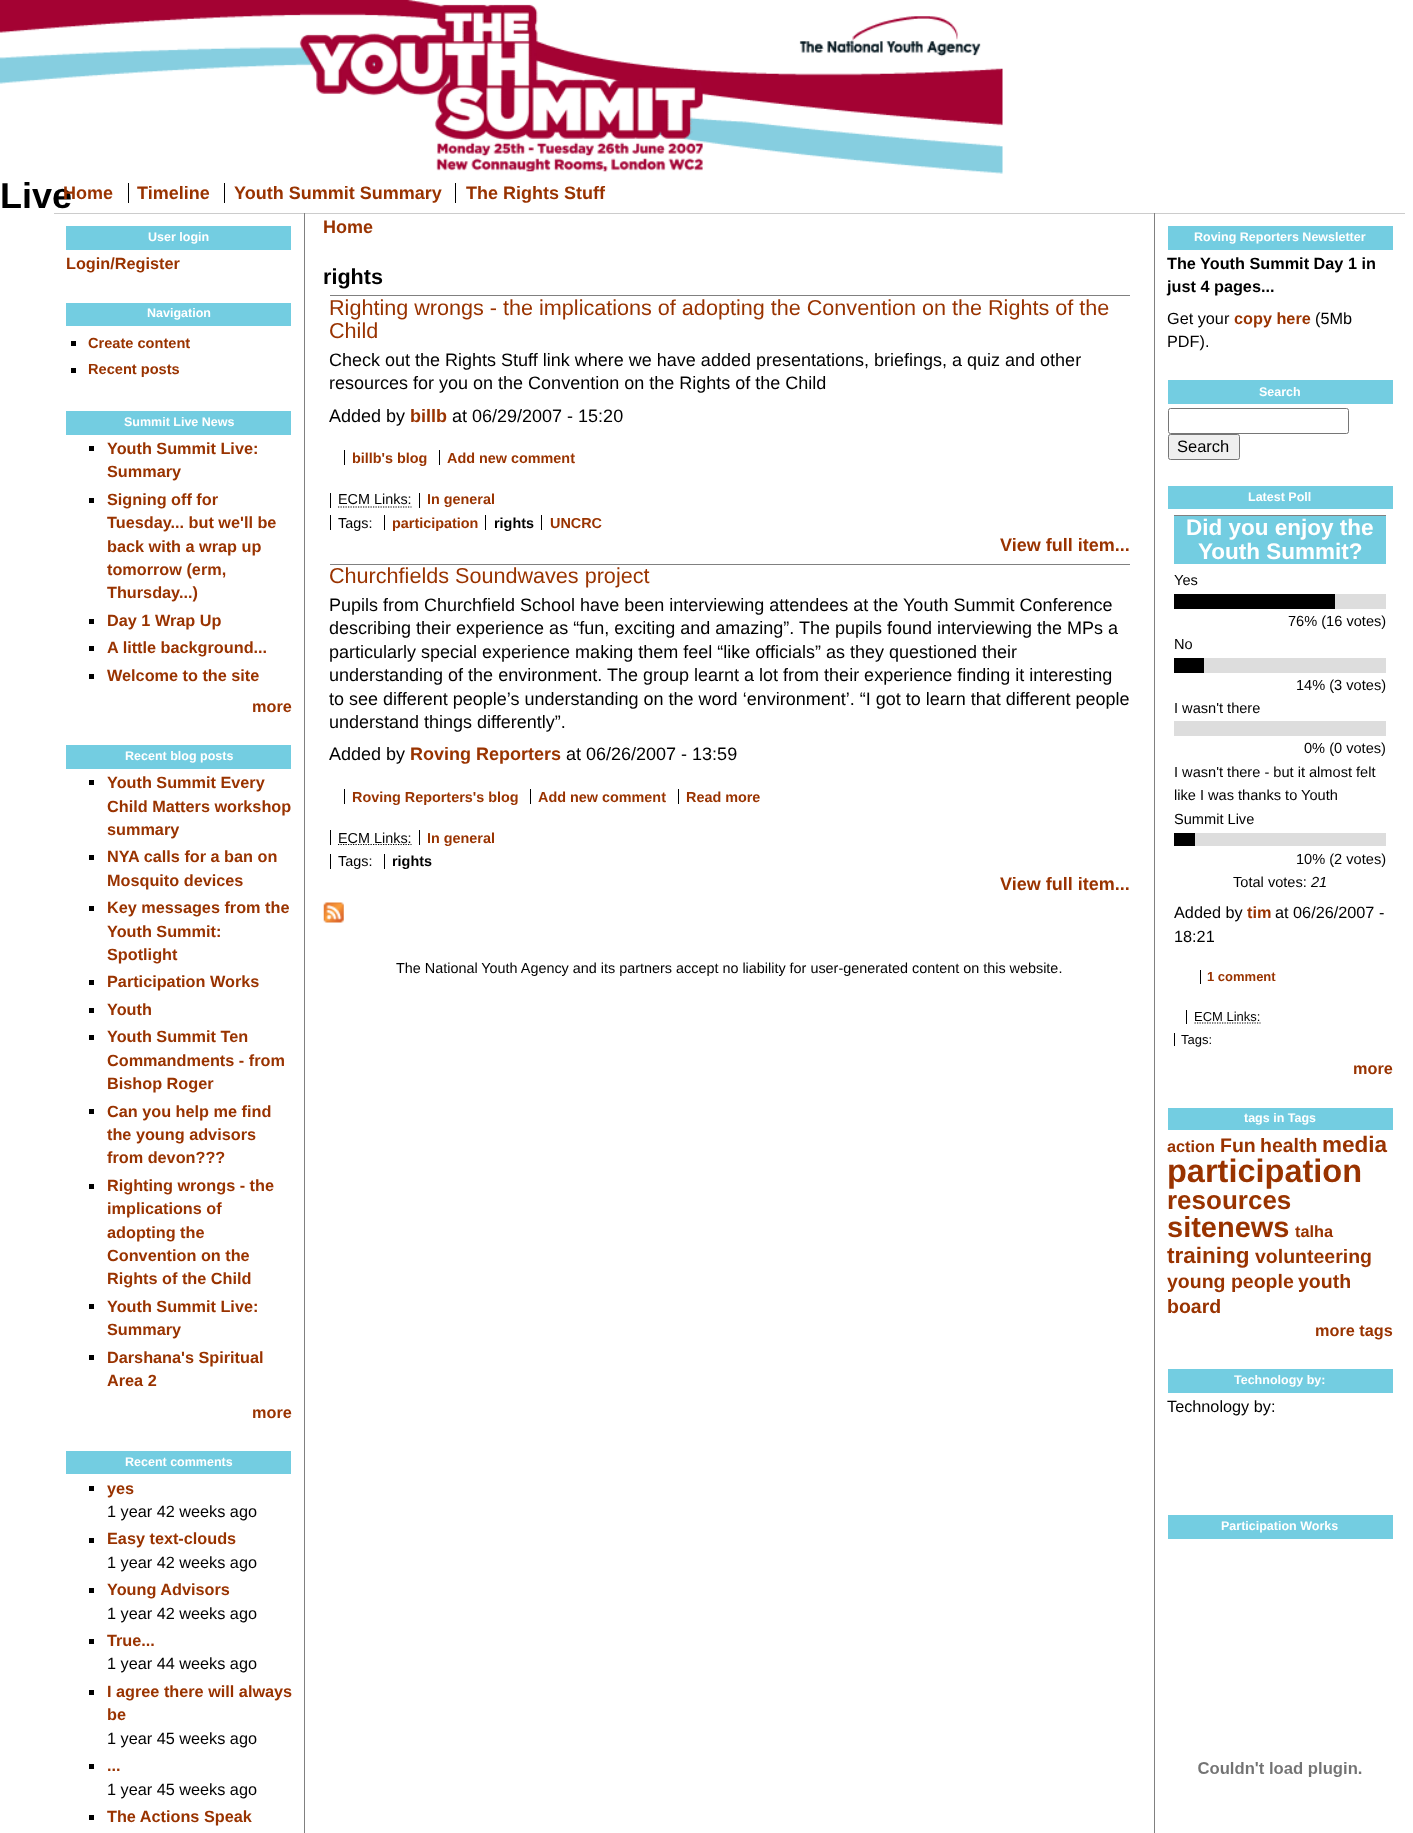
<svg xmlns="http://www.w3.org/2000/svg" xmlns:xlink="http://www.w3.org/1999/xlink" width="1413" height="1833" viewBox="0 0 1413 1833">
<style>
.cls-1{font:bold 36px Liberation Sans;fill:#000000}
.cls-2{font:bold 18px Liberation Sans;fill:#993300}
.cls-3{font:bold 12.5px Liberation Sans;fill:#ffffff}
.cls-4{font:bold 16.25px Liberation Sans;fill:#993300}
.cls-5{font:bold 14.6px Liberation Sans;fill:#993300}
.cls-6{font:16.25px Liberation Sans;fill:#000000}
.cls-7{font:bold 21.6px Liberation Sans;fill:#000000}
.cls-8{font:21.6px Liberation Sans;fill:#993300}
.cls-9{font:18px Liberation Sans;fill:#000000}
.cls-10{font:bold 14.4px Liberation Sans;fill:#993300}
.cls-11{font:14.4px Liberation Sans;fill:#000000}
.cls-12{font:bold 14.4px Liberation Sans;fill:#000000}
.cls-13{font:bold 16.25px Liberation Sans;fill:#000000}
.cls-14{font:16.5px Liberation Sans;fill:#000000}
.cls-15{font:bold 22.5px Liberation Sans;fill:#ffffff}
.cls-16{font:14.6px Liberation Sans;fill:#000000}
.cls-17{font:italic 14.6px Liberation Sans;fill:#000000}
.cls-18{font:bold 13px Liberation Sans;fill:#993300}
.cls-19{font:13px Liberation Sans;fill:#000000}
.cls-20{font:bold 19.5px Liberation Sans;fill:#993300}
.cls-21{font:bold 22.5px Liberation Sans;fill:#993300}
.cls-22{font:bold 32.5px Liberation Sans;fill:#993300}
.cls-23{font:bold 26px Liberation Sans;fill:#993300}
.cls-24{font:bold 29px Liberation Sans;fill:#993300}
</style>
<rect width="100%" height="100%" fill="#ffffff"/>
<image xlink:href="image0.png" x="0" y="0" width="1003" height="174"/>
<rect fill="#000000" x="128" y="183" width="1" height="20"/>
<rect fill="#000000" x="224" y="183" width="1" height="20"/>
<rect fill="#000000" x="455" y="183" width="1" height="20"/>
<rect fill="#cccccc" x="54" y="213" width="1351" height="1"/>
<rect fill="#808080" x="304" y="213" width="1" height="1620"/>
<rect fill="#73cde1" x="66" y="226" width="225" height="24"/>
<rect fill="#73cde1" x="66" y="303" width="225" height="23"/>
<rect fill="#000000" x="71" y="341" width="5" height="5"/>
<rect fill="#000000" x="71" y="368" width="5" height="5"/>
<rect fill="#73cde1" x="66" y="411" width="225" height="24"/>
<rect fill="#000000" x="89" y="446" width="5" height="5"/>
<rect fill="#000000" x="89" y="498" width="5" height="5"/>
<rect fill="#000000" x="89" y="619" width="5" height="5"/>
<rect fill="#000000" x="89" y="646" width="5" height="5"/>
<rect fill="#000000" x="89" y="674" width="5" height="5"/>
<rect fill="#73cde1" x="66" y="745" width="225" height="24"/>
<rect fill="#000000" x="89" y="780" width="5" height="5"/>
<rect fill="#000000" x="89" y="855" width="5" height="5"/>
<rect fill="#000000" x="89" y="906" width="5" height="5"/>
<rect fill="#000000" x="89" y="980" width="5" height="5"/>
<rect fill="#000000" x="89" y="1008" width="5" height="5"/>
<rect fill="#000000" x="89" y="1035" width="5" height="5"/>
<rect fill="#000000" x="89" y="1109" width="5" height="5"/>
<rect fill="#000000" x="89" y="1184" width="5" height="5"/>
<rect fill="#000000" x="89" y="1304" width="5" height="5"/>
<rect fill="#000000" x="89" y="1355" width="5" height="5"/>
<rect fill="#73cde1" x="66" y="1451" width="225" height="23"/>
<rect fill="#000000" x="89" y="1486" width="5" height="5"/>
<rect fill="#000000" x="89" y="1538" width="5" height="5"/>
<rect fill="#000000" x="89" y="1588" width="5" height="5"/>
<rect fill="#000000" x="89" y="1639" width="5" height="5"/>
<rect fill="#000000" x="89" y="1690" width="5" height="5"/>
<rect fill="#000000" x="89" y="1764" width="5" height="5"/>
<rect fill="#000000" x="89" y="1815" width="5" height="5"/>
<rect fill="#808080" x="330" y="295" width="800" height="1"/>
<rect fill="#000000" x="344" y="450" width="1" height="15"/>
<rect fill="#000000" x="439" y="450" width="1" height="15"/>
<rect fill="#000000" x="330" y="493" width="1" height="15"/>
<path fill="none" stroke="#000000" stroke-width="1.2" stroke-dasharray="1.25 1.25" d="M338 507H411.5"/>
<rect fill="#000000" x="419" y="493" width="1" height="15"/>
<rect fill="#000000" x="330" y="515" width="1" height="15"/>
<rect fill="#000000" x="384" y="515" width="1" height="15"/>
<rect fill="#000000" x="485" y="515" width="1" height="15"/>
<rect fill="#000000" x="541" y="515" width="1" height="15"/>
<rect fill="#808080" x="330" y="564" width="800" height="1"/>
<rect fill="#000000" x="344" y="789" width="1" height="15"/>
<rect fill="#000000" x="530" y="789" width="1" height="15"/>
<rect fill="#000000" x="678" y="789" width="1" height="15"/>
<rect fill="#000000" x="330" y="830" width="1" height="15"/>
<path fill="none" stroke="#000000" stroke-width="1.2" stroke-dasharray="1.25 1.25" d="M338 844.5H411.5"/>
<rect fill="#000000" x="419" y="830" width="1" height="15"/>
<rect fill="#000000" x="330" y="854" width="1" height="15"/>
<rect fill="#000000" x="384" y="854" width="1" height="15"/>
<image xlink:href="image1.png" x="323" y="902" width="21" height="21"/>
<rect fill="#808080" x="1154" y="213" width="1" height="1620"/>
<rect fill="#73cde1" x="1168" y="226" width="225" height="24"/>
<rect fill="#73cde1" x="1168" y="380" width="225" height="24"/>
<rect fill="none" stroke="#767676" x="1168.5" y="408.5" width="180" height="25" rx="2"/>
<rect fill="#efefef" stroke="#767676" x="1168.5" y="434.5" width="71" height="25" rx="2"/>
<rect fill="#73cde1" x="1168" y="486" width="225" height="23"/>
<rect fill="#808080" x="1174" y="515" width="212" height="1"/>
<rect fill="#73cde1" x="1174" y="516" width="212" height="48"/>
<rect fill="#dddddd" x="1335" y="594" width="51" height="15"/>
<rect fill="#000000" x="1174" y="594" width="161" height="15"/>
<rect fill="#dddddd" x="1204" y="658" width="182" height="15"/>
<rect fill="#000000" x="1174" y="658" width="30" height="15"/>
<rect fill="#dddddd" x="1174" y="721" width="212" height="15"/>
<rect fill="#dddddd" x="1195" y="833" width="191" height="13"/>
<rect fill="#000000" x="1174" y="833" width="21" height="13"/>
<rect fill="#000000" x="1200" y="970" width="1" height="14"/>
<rect fill="#000000" x="1186" y="1010" width="1" height="14"/>
<path fill="none" stroke="#000000" stroke-width="1.2" stroke-dasharray="1.25 1.25" d="M1194.5 1023H1260.5"/>
<rect fill="#000000" x="1174" y="1033" width="1" height="13"/>
<rect fill="#73cde1" x="1168" y="1108" width="225" height="22"/>
<rect fill="#73cde1" x="1168" y="1369" width="225" height="24"/>
<rect fill="#73cde1" x="1168" y="1515" width="225" height="24"/>
<image xlink:href="image2.png" x="1198" y="1762" width="164" height="15"/>
<text class="cls-1" x="0" y="208">Live</text>
<text class="cls-2" x="63" y="199">Home</text>
<text class="cls-2" x="137" y="199">Timeline</text>
<text class="cls-2" x="234" y="199">Youth Summit Summary</text>
<text class="cls-2" x="466" y="199">The Rights Stuff</text>
<text class="cls-3" x="148" y="241">User login</text>
<text class="cls-4" x="66" y="269">Login/Register</text>
<text class="cls-3" x="147" y="317">Navigation</text>
<text class="cls-5"><tspan x="88" y="348">Create content</tspan><tspan x="88" y="374">Recent posts</tspan></text>
<text class="cls-3" x="124" y="426">Summit Live News</text>
<text class="cls-4"><tspan x="107" y="454">Youth Summit Live:</tspan><tspan x="107" y="477">Summary</tspan><tspan x="107" y="505">Signing off for</tspan><tspan x="107" y="528">Tuesday... but we'll be</tspan><tspan x="107" y="552">back with a wrap up</tspan><tspan x="107" y="575">tomorrow (erm,</tspan><tspan x="107" y="598">Thursday...)</tspan><tspan x="107" y="626">Day 1 Wrap Up</tspan><tspan x="107" y="653">A little background...</tspan><tspan x="107" y="681">Welcome to the site</tspan></text>
<text class="cls-4" x="252" y="712">more</text>
<text class="cls-3" x="125" y="760">Recent blog posts</text>
<text class="cls-4"><tspan x="107" y="788">Youth Summit Every</tspan><tspan x="107" y="812">Child Matters workshop</tspan><tspan x="107" y="835">summary</tspan><tspan x="107" y="862">NYA calls for a ban on</tspan><tspan x="107" y="886">Mosquito devices</tspan><tspan x="107" y="913">Key messages from the</tspan><tspan x="107" y="937">Youth Summit:</tspan><tspan x="107" y="960">Spotlight</tspan><tspan x="107" y="987">Participation Works</tspan><tspan x="107" y="1015">Youth</tspan><tspan x="107" y="1042">Youth Summit Ten</tspan><tspan x="107" y="1066">Commandments - from</tspan><tspan x="107" y="1089">Bishop Roger</tspan><tspan x="107" y="1117">Can you help me find</tspan><tspan x="107" y="1140">the young advisors</tspan><tspan x="107" y="1163">from devon???</tspan><tspan x="107" y="1191">Righting wrongs - the</tspan><tspan x="107" y="1214">implications of</tspan><tspan x="107" y="1238">adopting the</tspan><tspan x="107" y="1261">Convention on the</tspan><tspan x="107" y="1284">Rights of the Child</tspan><tspan x="107" y="1312">Youth Summit Live:</tspan><tspan x="107" y="1335">Summary</tspan><tspan x="107" y="1363">Darshana's Spiritual</tspan><tspan x="107" y="1386">Area 2</tspan></text>
<text class="cls-4" x="252" y="1418">more</text>
<text class="cls-3" x="125" y="1466">Recent comments</text>
<text class="cls-4" x="107" y="1494">yes</text>
<text class="cls-6" x="107" y="1517">1 year 42 weeks ago</text>
<text class="cls-4" x="107" y="1544">Easy text-clouds</text>
<text class="cls-6" x="107" y="1568">1 year 42 weeks ago</text>
<text class="cls-4" x="107" y="1595">Young Advisors</text>
<text class="cls-6" x="107" y="1619">1 year 42 weeks ago</text>
<text class="cls-4" x="107" y="1646">True...</text>
<text class="cls-6" x="107" y="1669">1 year 44 weeks ago</text>
<text class="cls-4"><tspan x="107" y="1697">I agree there will always</tspan><tspan x="107" y="1720">be</tspan></text>
<text class="cls-6" x="107" y="1744">1 year 45 weeks ago</text>
<text class="cls-4" x="107" y="1771">...</text>
<text class="cls-6" x="107" y="1795">1 year 45 weeks ago</text>
<text class="cls-4" x="107" y="1822">The Actions Speak</text>
<text class="cls-2" x="323" y="233">Home</text>
<text class="cls-7" x="323" y="284">rights</text>
<text class="cls-8"><tspan x="329" y="315">Righting wrongs - the implications of adopting the Convention on the Rights of the</tspan><tspan x="329" y="338">Child</tspan></text>
<text class="cls-9"><tspan x="329" y="366">Check out the Rights Stuff link where we have added presentations, briefings, a quiz and other</tspan><tspan x="329" y="389">resources for you on the Convention on the Rights of the Child</tspan><tspan x="329" y="422">Added by</tspan></text>
<text class="cls-2" x="410" y="422">billb</text>
<text class="cls-9" x="452" y="422">at 06/29/2007 - 15:20</text>
<text class="cls-10" x="352" y="463">billb's blog</text>
<text class="cls-10" x="447" y="463">Add new comment</text>
<text class="cls-11" x="338" y="504">ECM Links:</text>
<text class="cls-10" x="427" y="504">In general</text>
<text class="cls-11" x="338" y="528">Tags:</text>
<text class="cls-10" x="392" y="528">participation</text>
<text class="cls-12" x="494" y="528">rights</text>
<text class="cls-10" x="550" y="528">UNCRC</text>
<text class="cls-2" x="1000" y="551">View full item...</text>
<text class="cls-8" x="329" y="583">Churchfields Soundwaves project</text>
<text class="cls-9"><tspan x="329" y="611">Pupils from Churchfield School have been interviewing attendees at the Youth Summit Conference</tspan><tspan x="329" y="634">describing their experience as “fun, exciting and amazing”. The pupils found interviewing the MPs a</tspan><tspan x="329" y="658">particularly special experience making them feel “like officials” as they questioned their</tspan><tspan x="329" y="681">understanding of the environment.</tspan></text>
<text class="cls-9" x="607" y="681">The group learnt a lot from their experience finding it interesting</text>
<text class="cls-9"><tspan x="329" y="705">to see different people’s understanding on the word ‘environment’. “I got to learn that different people</tspan><tspan x="329" y="728">understand things differently”.</tspan><tspan x="329" y="760">Added by</tspan></text>
<text class="cls-2" x="410" y="760">Roving Reporters</text>
<text class="cls-9" x="566" y="760">at 06/26/2007 - 13:59</text>
<text class="cls-10" x="352" y="802">Roving Reporters's blog</text>
<text class="cls-10" x="538" y="802">Add new comment</text>
<text class="cls-10" x="686" y="802">Read more</text>
<text class="cls-11" x="338" y="843">ECM Links:</text>
<text class="cls-10" x="427" y="843">In general</text>
<text class="cls-11" x="338" y="866">Tags:</text>
<text class="cls-12" x="392" y="866">rights</text>
<text class="cls-2" x="1000" y="890">View full item...</text>
<text class="cls-11" x="396" y="973">The National Youth Agency and its partners accept no liability for user-generated content on this website.</text>
<text class="cls-3" x="1194" y="241">Roving Reporters Newsletter</text>
<text class="cls-13"><tspan x="1167" y="269">The Youth Summit Day 1 in</tspan><tspan x="1167" y="292">just 4 pages...</tspan></text>
<text class="cls-6" x="1167" y="324">Get your</text>
<text class="cls-4" x="1234" y="324">copy here</text>
<text class="cls-6" x="1315" y="324">(5Mb</text>
<text class="cls-6" x="1167" y="347">PDF).</text>
<text class="cls-3" x="1259" y="396">Search</text>
<text class="cls-14" x="1177" y="452">Search</text>
<text class="cls-3" x="1248" y="501">Latest Poll</text>
<text class="cls-15" x="1186" y="535">Did you enjoy the</text>
<text class="cls-15" x="1198" y="559">Youth Summit?</text>
<text class="cls-16" x="1174" y="585">Yes</text>
<text class="cls-16" x="1288" y="626">76% (16 votes)</text>
<text class="cls-16" x="1174" y="649">No</text>
<text class="cls-16" x="1296" y="690">14% (3 votes)</text>
<text class="cls-16" x="1174" y="713">I wasn't there</text>
<text class="cls-16" x="1304" y="753">0% (0 votes)</text>
<text class="cls-16"><tspan x="1174" y="777">I wasn't there - but it almost felt</tspan><tspan x="1174" y="800">like I was thanks to Youth</tspan><tspan x="1174" y="824">Summit Live</tspan></text>
<text class="cls-16" x="1296" y="864">10% (2 votes)</text>
<text class="cls-16" x="1233" y="887">Total votes:</text>
<text class="cls-17" x="1311" y="887">21</text>
<text class="cls-6" x="1174" y="918">Added by</text>
<text class="cls-4" x="1247" y="918">tim</text>
<text class="cls-6" x="1275" y="918">at 06/26/2007 -</text>
<text class="cls-6" x="1174" y="942">18:21</text>
<text class="cls-18" x="1207" y="981">1 comment</text>
<text class="cls-19" x="1194" y="1021">ECM Links:</text>
<text class="cls-19" x="1181" y="1044">Tags:</text>
<text class="cls-4" x="1353" y="1074">more</text>
<text class="cls-3" x="1244" y="1122">tags in Tags</text>
<text class="cls-4" x="1167" y="1152">action</text>
<text class="cls-20" x="1220" y="1152">Fun</text>
<text class="cls-20" x="1260" y="1152">health</text>
<text class="cls-21" x="1322" y="1152">media</text>
<text class="cls-22" x="1167" y="1182">participation</text>
<text class="cls-23" x="1167" y="1209">resources</text>
<text class="cls-24" x="1167" y="1237">sitenews</text>
<text class="cls-4" x="1295" y="1237">talha</text>
<text class="cls-21" x="1167" y="1263">training</text>
<text class="cls-20" x="1255" y="1263">volunteering</text>
<text class="cls-20" x="1167" y="1288">young people</text>
<text class="cls-20" x="1298" y="1288">youth</text>
<text class="cls-20" x="1167" y="1313">board</text>
<text class="cls-4" x="1315" y="1336">more tags</text>
<text class="cls-3" x="1234" y="1384">Technology by:</text>
<text class="cls-6" x="1167" y="1412">Technology by:</text>
<text class="cls-3" x="1221" y="1530">Participation Works</text>
</svg>
